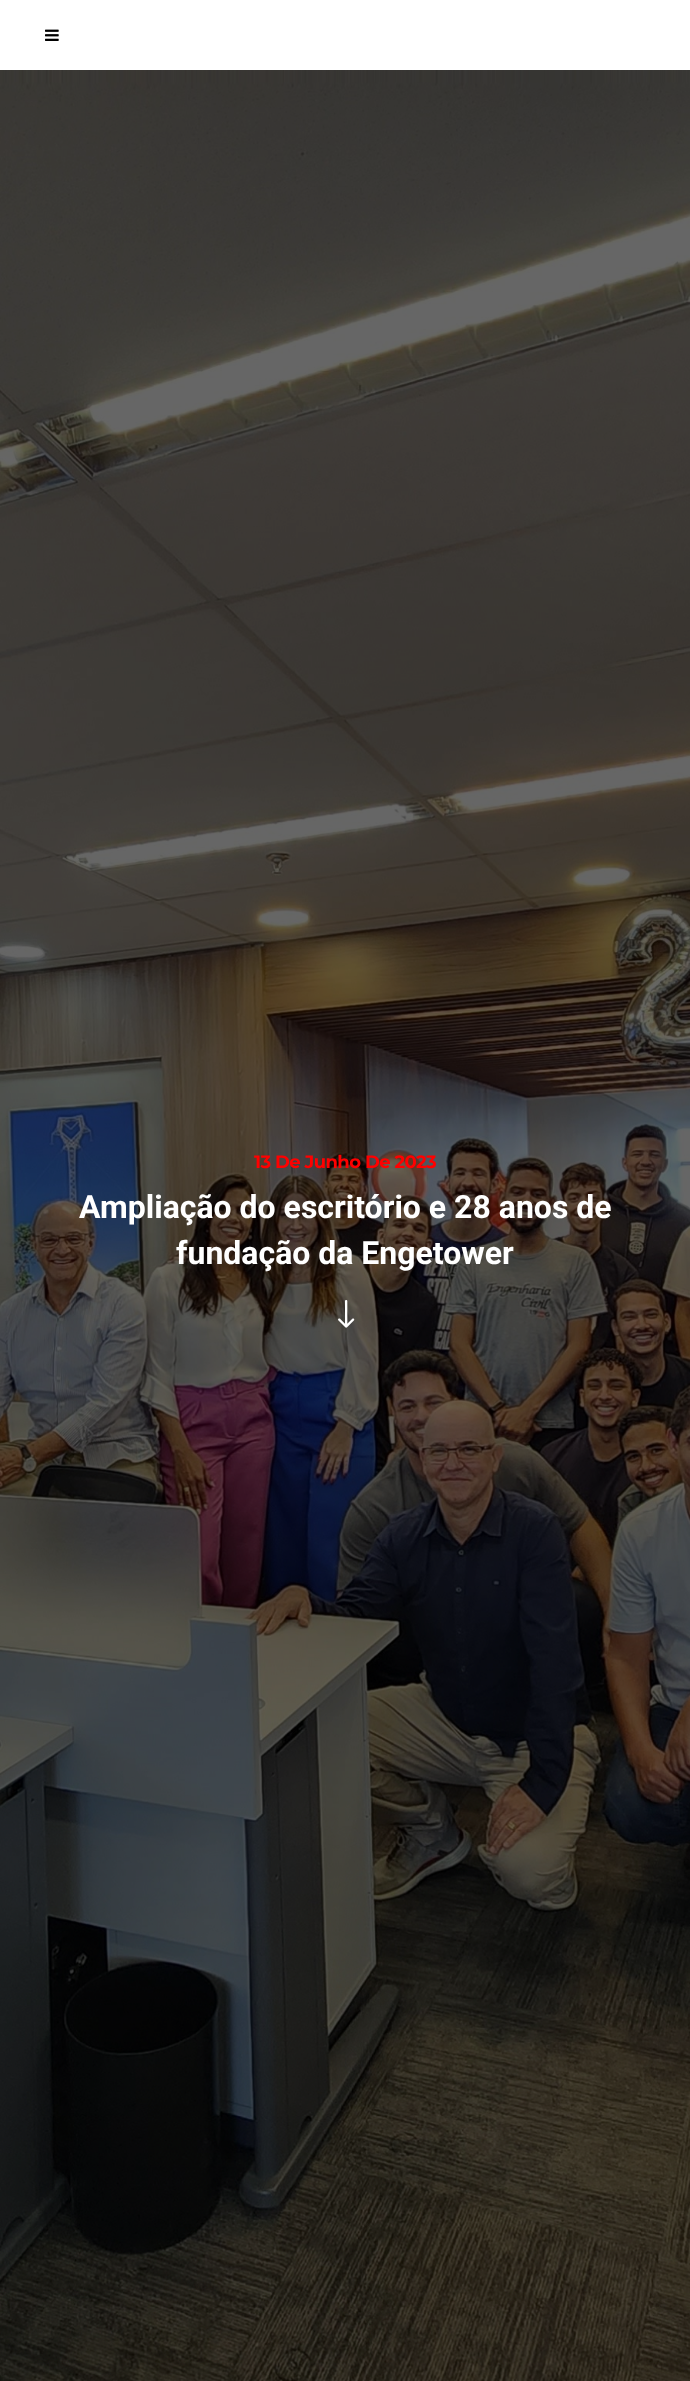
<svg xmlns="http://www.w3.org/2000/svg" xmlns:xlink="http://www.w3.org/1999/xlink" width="690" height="2381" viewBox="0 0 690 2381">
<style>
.cls-1{font:bold 18px Montserrat;letter-spacing:-0.6px;fill:#ff0000}
.cls-2{font:bold 32px Roboto;fill:#ffffff}
</style>
<rect width="100%" height="100%" fill="#ffffff"/>
<image xlink:href="image0.png" x="45" y="29" width="14" height="12"/>
<image xlink:href="image1.png" x="0" y="70" width="690" height="2311"/>
<image xlink:href="image2.png" x="338" y="1300" width="17" height="28"/>
<text class="cls-1" x="254" y="1168">13 De Junho De 2023</text>
<text class="cls-2" x="79" y="1218">Ampliação do escritório e 28 anos de</text>
<text class="cls-2" x="176" y="1264">fundação da Engetower</text>
</svg>
